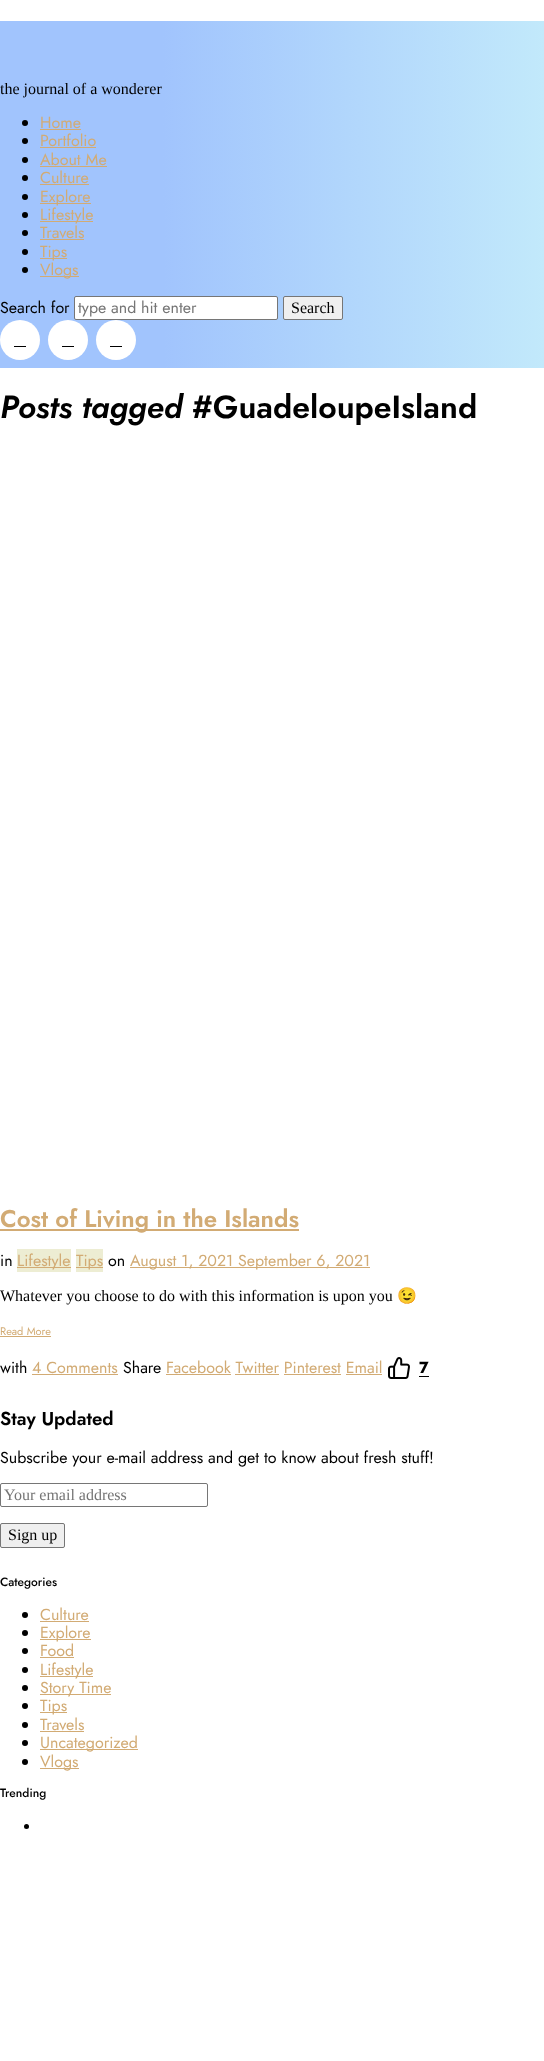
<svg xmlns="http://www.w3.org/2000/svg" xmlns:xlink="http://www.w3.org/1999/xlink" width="544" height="2061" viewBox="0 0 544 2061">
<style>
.cls-1{font:16px Liberation Serif;fill:#000000}
.cls-2{font:16px Jost;fill:#d2ab74}
.cls-3{font:16px Jost;fill:#000000}
.cls-4{font:16px Jost;fill:#757575}
.cls-5{font:italic 600 32px Jost;fill:#000000}
.cls-6{font:600 32px Jost;fill:#000000}
.cls-7{font:600 24px Jost;fill:#d2ab74}
.cls-8{font:16px Noto Color Emoji;fill:#000000}
.cls-9{font:11px Jost;fill:#d2ab74}
.cls-10{font:bold 16px Jost;fill:#000000}
.cls-11{font:600 18.75px Jost;fill:#000000}
.cls-12{font:16px Liberation Serif;fill:#757575}
.cls-13{font:500 12px Jost;fill:#000000}
</style>
<defs>
<linearGradient id="g1" gradientUnits="userSpaceOnUse" x1="0" y1="195" x2="544" y2="194"><stop offset="0.3" stop-color="#a1c4fd"/><stop offset="1" stop-color="#c2e9fb"/></linearGradient>
</defs>
<rect width="100%" height="100%" fill="#ffffff"/>
<rect fill="url(#g1)" x="0" y="21" width="544" height="347"/>
<circle fill="#000000" cx="25" cy="123" r="3"/>
<rect fill="#d2ab74" x="40" y="129" width="41" height="1"/>
<circle fill="#000000" cx="25" cy="141" r="3"/>
<rect fill="#d2ab74" x="40" y="147" width="56" height="1"/>
<circle fill="#000000" cx="25" cy="160" r="3"/>
<rect fill="#d2ab74" x="40" y="166" width="67" height="1"/>
<circle fill="#000000" cx="25" cy="178" r="3"/>
<rect fill="#d2ab74" x="40" y="184" width="49" height="1"/>
<circle fill="#000000" cx="25" cy="197" r="3"/>
<rect fill="#d2ab74" x="40" y="203" width="51" height="1"/>
<circle fill="#000000" cx="25" cy="215" r="3"/>
<rect fill="#d2ab74" x="40" y="221" width="53" height="1"/>
<circle fill="#000000" cx="25" cy="233" r="3"/>
<rect fill="#d2ab74" x="40" y="239" width="44" height="1"/>
<circle fill="#000000" cx="25" cy="252" r="3"/>
<rect fill="#d2ab74" x="40" y="258" width="27" height="1"/>
<circle fill="#000000" cx="25" cy="270" r="3"/>
<rect fill="#d2ab74" x="40" y="276" width="39" height="1"/>
<rect fill="#ffffff" stroke="#767676" x="74.5" y="296.5" width="203" height="23" rx="1.5"/>
<rect fill="#efefef" stroke="#767676" x="283.5" y="296.5" width="59" height="23" rx="1.5"/>
<circle fill="#ffffff" cx="20" cy="340" r="20"/>
<rect fill="#000000" x="14" y="346" width="12" height="1"/>
<circle fill="#ffffff" cx="68" cy="340" r="20"/>
<rect fill="#000000" x="62" y="346" width="12" height="1"/>
<circle fill="#ffffff" cx="116" cy="340" r="20"/>
<rect fill="#000000" x="110" y="346" width="12" height="1"/>
<rect fill="#d2ab74" x="0" y="1229" width="299" height="2"/>
<rect fill="#ededd3" x="17" y="1249" width="54" height="23"/>
<rect fill="#d2ab74" x="17" y="1267" width="54" height="1"/>
<rect fill="#ededd3" x="76" y="1249" width="27" height="23"/>
<rect fill="#d2ab74" x="76" y="1267" width="27" height="1"/>
<rect fill="#d2ab74" x="130" y="1267" width="240" height="1"/>
<rect fill="#d2ab74" x="0" y="1336" width="51" height="1"/>
<rect fill="#d2ab74" x="32" y="1374" width="86" height="1"/>
<rect fill="#d2ab74" x="166" y="1374" width="65" height="1"/>
<rect fill="#d2ab74" x="235" y="1374" width="44" height="1"/>
<rect fill="#d2ab74" x="284" y="1374" width="57" height="1"/>
<rect fill="#d2ab74" x="346" y="1374" width="36" height="1"/>
<image xlink:href="image0.png" x="388" y="1357" width="22" height="22"/>
<rect fill="#000000" x="419" y="1376" width="10" height="1"/>
<rect fill="none" stroke="#767676" x="0.5" y="1483.5" width="207" height="23" rx="1.5"/>
<rect fill="#efefef" stroke="#767676" x="0.5" y="1523.5" width="64" height="24" rx="1.5"/>
<circle fill="#000000" cx="25" cy="1615" r="3"/>
<rect fill="#d2ab74" x="40" y="1621" width="49" height="1"/>
<circle fill="#000000" cx="25" cy="1633" r="3"/>
<rect fill="#d2ab74" x="40" y="1639" width="51" height="1"/>
<circle fill="#000000" cx="25" cy="1651" r="3"/>
<rect fill="#d2ab74" x="40" y="1657" width="34" height="1"/>
<circle fill="#000000" cx="25" cy="1670" r="3"/>
<rect fill="#d2ab74" x="40" y="1676" width="53" height="1"/>
<circle fill="#000000" cx="25" cy="1688" r="3"/>
<rect fill="#d2ab74" x="40" y="1694" width="71" height="1"/>
<circle fill="#000000" cx="25" cy="1706" r="3"/>
<rect fill="#d2ab74" x="40" y="1712" width="27" height="1"/>
<circle fill="#000000" cx="25" cy="1725" r="3"/>
<rect fill="#d2ab74" x="40" y="1731" width="44" height="1"/>
<circle fill="#000000" cx="25" cy="1743" r="3"/>
<rect fill="#d2ab74" x="40" y="1749" width="98" height="1"/>
<circle fill="#000000" cx="25" cy="1762" r="3"/>
<rect fill="#d2ab74" x="40" y="1768" width="39" height="1"/>
<circle fill="#000000" cx="26.5" cy="1826.5" r="2.5"/>
<text class="cls-1" x="0" y="94">the journal of a wonderer</text>
<text class="cls-2"><tspan x="40" y="128">Home</tspan><tspan x="40" y="146">Portfolio</tspan><tspan x="40" y="165">About Me</tspan><tspan x="40" y="183">Culture</tspan><tspan x="40" y="202">Explore</tspan><tspan x="40" y="220">Lifestyle</tspan><tspan x="40" y="238">Travels</tspan><tspan x="40" y="257">Tips</tspan><tspan x="40" y="275">Vlogs</tspan></text>
<text class="cls-3" x="0" y="313">Search for</text>
<text class="cls-4" x="78" y="313">type and hit enter</text>
<text class="cls-1" x="291" y="313">Search</text>
<text class="cls-5" x="0" y="418">Posts tagged</text>
<text class="cls-6" x="192" y="418">#GuadeloupeIsland</text>
<text class="cls-7" x="0" y="1227">Cost of Living in the Islands</text>
<text class="cls-3" x="0" y="1266">in</text>
<text class="cls-2" x="17" y="1266">Lifestyle</text>
<text class="cls-2" x="76" y="1266">Tips</text>
<text class="cls-3" x="108" y="1266">on</text>
<text class="cls-2" x="130" y="1266">August 1, 2021 September 6, 2021</text>
<text class="cls-1" x="0" y="1301">Whatever you choose to do with this information is upon you</text>
<text class="cls-8" x="397" y="1301">😉</text>
<text class="cls-9" x="0" y="1335">Read More</text>
<text class="cls-3" x="0" y="1373">with</text>
<text class="cls-2" x="32" y="1373">4 Comments</text>
<text class="cls-3" x="123" y="1373">Share</text>
<text class="cls-2" x="166" y="1373">Facebook Twitter Pinterest Email</text>
<text class="cls-10" x="419" y="1373">7</text>
<text class="cls-11" x="0" y="1425">Stay Updated</text>
<text class="cls-3" x="0" y="1463">Subscribe your e-mail address and get to know about fresh stuff!</text>
<text class="cls-12" x="4" y="1500">Your email address</text>
<text class="cls-1" x="8" y="1540">Sign up</text>
<text class="cls-13" x="0" y="1586">Categories</text>
<text class="cls-2"><tspan x="40" y="1620">Culture</tspan><tspan x="40" y="1638">Explore</tspan><tspan x="40" y="1656">Food</tspan><tspan x="40" y="1675">Lifestyle</tspan><tspan x="40" y="1693">Story Time</tspan><tspan x="40" y="1711">Tips</tspan><tspan x="40" y="1730">Travels</tspan><tspan x="40" y="1748">Uncategorized</tspan><tspan x="40" y="1767">Vlogs</tspan></text>
<text class="cls-13" x="0" y="1797">Trending</text>
</svg>
